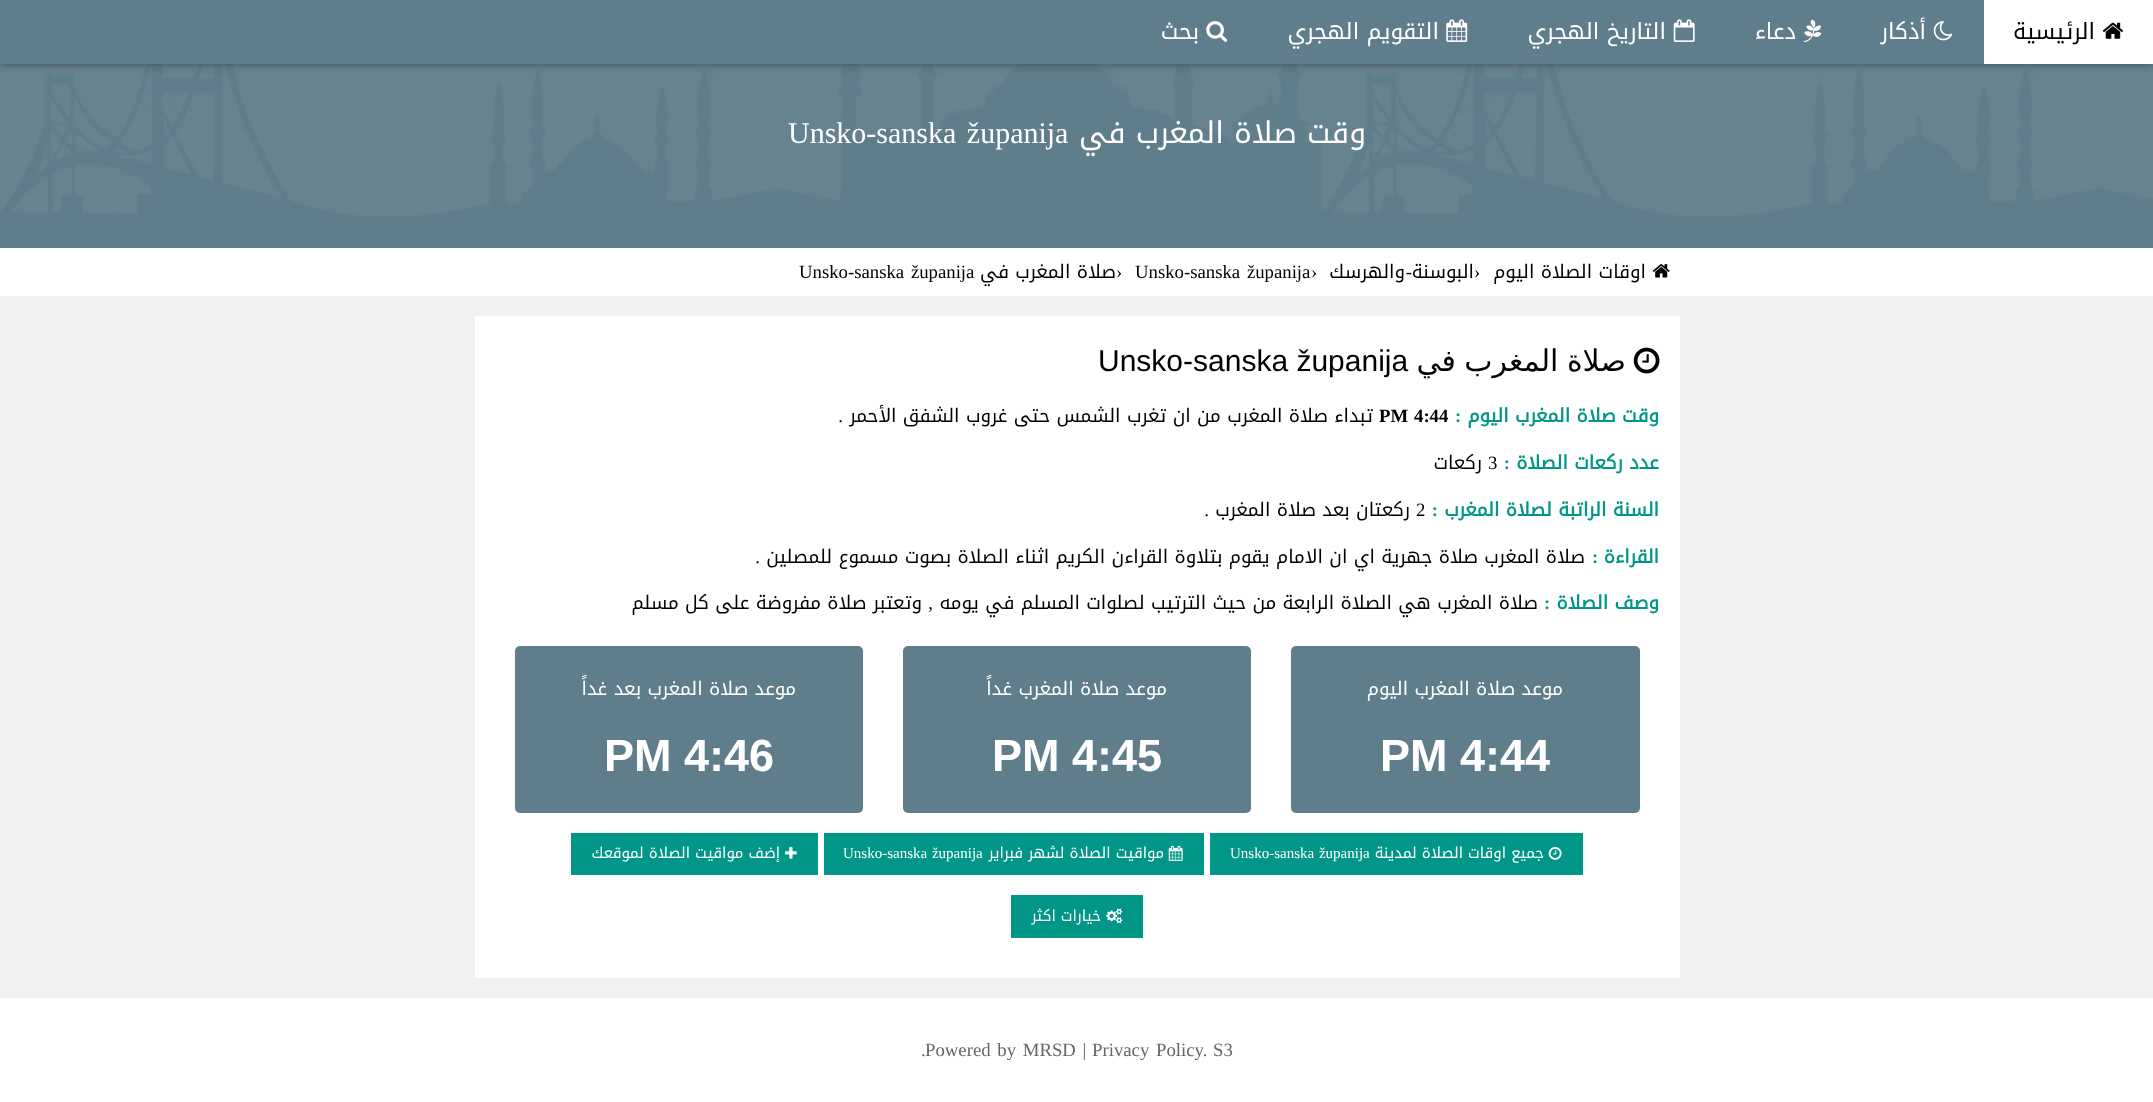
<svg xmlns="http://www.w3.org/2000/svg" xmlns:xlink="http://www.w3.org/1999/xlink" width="2153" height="1102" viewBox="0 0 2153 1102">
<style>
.cls-1{font:22.5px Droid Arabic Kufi;direction:rtl;fill:#000000}
.cls-2{font:22.5px Droid Arabic Kufi;direction:rtl;fill:#ffffff}
.cls-3{font:30px Droid Arabic Kufi;direction:rtl;fill:#ffffff}
.cls-4{font:30px Liberation Serif;fill:#ffffff}
.cls-5{font:18.75px Droid Arabic Kufi;direction:rtl;fill:#000000}
.cls-6{font:18.75px Liberation Serif;fill:#000000}
.cls-7{font:18.75px Liberation Serif;direction:rtl;fill:#000000}
.cls-8{font:30px DejaVu Sans;direction:rtl;fill:#000000}
.cls-9{font:30px Liberation Sans;fill:#000000}
.cls-10{font:bold 18.75px Droid Arabic Kufi;direction:rtl;fill:#009688}
.cls-11{font:bold 18.75px Liberation Serif;fill:#009688}
.cls-12{font:bold 18.75px Liberation Serif;fill:#000000}
.cls-13{font:bold 18.75px Liberation Serif;direction:rtl;fill:#009688}
.cls-14{font:18.75px Droid Arabic Kufi;direction:rtl;fill:#ffffff}
.cls-15{font:bold 45px Liberation Sans;fill:#ffffff}
.cls-16{font:15px Droid Arabic Kufi;direction:rtl;fill:#ffffff}
.cls-17{font:15px Liberation Serif;fill:#ffffff}
.cls-18{font:18.75px Liberation Serif;fill:#666666}
</style>
<rect width="100%" height="100%" fill="#ffffff"/>
<rect fill="#607d8b" x="0" y="64" width="2153" height="184"/>
<image xlink:href="image6.png" x="0" y="64" width="2153" height="153"/>
<rect fill="#000000" fill-opacity="0.12" filter="blur(6px)" x="0" y="3" width="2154" height="63"/>
<rect fill="#000000" fill-opacity="0.16" filter="blur(2.5px)" x="0" y="3" width="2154" height="63"/>
<rect fill="#607d8b" x="0" y="0" width="1984" height="64"/>
<rect fill="#ffffff" x="1984" y="0" width="169" height="64"/>
<image xlink:href="image0.png" x="2102" y="22" width="21" height="17"/>
<image xlink:href="image1.png" x="1933" y="21" width="20" height="20"/>
<image xlink:href="image2.png" x="1803" y="19" width="19" height="23"/>
<image xlink:href="image3.png" x="1673" y="19" width="22" height="23"/>
<image xlink:href="image4.png" x="1446" y="19" width="22" height="23"/>
<image xlink:href="image5.png" x="1206" y="21" width="22" height="21"/>
<image xlink:href="image7.png" x="1652" y="264" width="18" height="14"/>
<rect fill="#f1f1f1" x="0" y="296" width="2153" height="702"/>
<rect fill="#ffffff" x="475" y="316" width="1205" height="662"/>
<image xlink:href="image8.png" x="1633" y="347" width="27" height="27"/>
<rect fill="#607d8b" x="1291" y="646" width="349" height="167" rx="5"/>
<rect fill="#607d8b" x="903" y="646" width="348" height="167" rx="5"/>
<rect fill="#607d8b" x="515" y="646" width="348" height="167" rx="5"/>
<rect fill="#009688" x="1210" y="833" width="373" height="42"/>
<image xlink:href="image9.png" x="1548" y="847" width="14" height="13"/>
<rect fill="#009688" x="824" y="833" width="380" height="42"/>
<image xlink:href="image10.png" x="1168" y="845" width="15" height="16"/>
<rect fill="#009688" x="571" y="833" width="247" height="42"/>
<image xlink:href="image11.png" x="785" y="846" width="12" height="13"/>
<rect fill="#009688" x="1011" y="895" width="132" height="43"/>
<image xlink:href="image12.png" x="1106" y="908" width="17" height="16"/>
<text class="cls-1" x="2095" y="39">الرئيسية</text>
<text class="cls-2" x="1926" y="39">أذكار</text>
<text class="cls-2" x="1796" y="39">دعاء</text>
<text class="cls-2" x="1666" y="39">التاريخ الهجري</text>
<text class="cls-2" x="1439" y="39">التقويم الهجري</text>
<text class="cls-2" x="1199" y="39">بحث</text>
<text class="cls-3" x="1366" y="143">وقت صلاة المغرب في</text>
<text class="cls-4" x="788" y="143" word-spacing="3">Unsko-sanska županija</text>
<text class="cls-5" x="1646" y="278">اوقات الصلاة اليوم</text>
<text class="cls-6" x="1474" y="278">›</text>
<text class="cls-5" x="1474" y="278">البوسنة</text>
<text class="cls-7" x="1412" y="278">-</text>
<text class="cls-5" x="1405" y="278">والهرسك</text>
<text class="cls-6" x="1311" y="278">›</text>
<text class="cls-6" x="1135" y="278" word-spacing="2">Unsko-sanska županija</text>
<text class="cls-6" x="1116" y="278">›</text>
<text class="cls-5" x="1116" y="278">صلاة المغرب في</text>
<text class="cls-6" x="799" y="278" word-spacing="2">Unsko-sanska županija</text>
<text class="cls-8" x="1626" y="371" word-spacing="-1">صلاة المغرب في</text>
<text class="cls-9" x="1098" y="371">Unsko-sanska županija</text>
<text class="cls-10" x="1659" y="422">وقت صلاة المغرب اليوم</text>
<text class="cls-11" x="1455" y="422">:</text>
<text class="cls-12" x="1414" y="422">4:44</text>
<text class="cls-12" x="1379" y="422">PM</text>
<text class="cls-5" x="1373" y="422">تبداء صلاة المغرب من ان تغرب الشمس حتى غروب الشفق الأحمر</text>
<text class="cls-7" x="843" y="422">.</text>
<text class="cls-10" x="1659" y="469">عدد ركعات الصلاة</text>
<text class="cls-13" x="1510" y="469">:</text>
<text class="cls-6" x="1488" y="469">3</text>
<text class="cls-5" x="1482" y="469">ركعات</text>
<text class="cls-10" x="1659" y="516">السنة الراتبة لصلاة المغرب</text>
<text class="cls-13" x="1438" y="516">:</text>
<text class="cls-6" x="1416" y="516">2</text>
<text class="cls-5" x="1410" y="516">ركعتان بعد صلاة المغرب</text>
<text class="cls-7" x="1209" y="516">.</text>
<text class="cls-10" x="1659" y="563">القراءة</text>
<text class="cls-11" x="1592" y="563">:</text>
<text class="cls-5" x="1585" y="563">صلاة المغرب صلاة جهرية اي ان الامام يقوم بتلاوة القراءن الكريم اثناء الصلاة بصوت مسموع للمصلين</text>
<text class="cls-7" x="760" y="563">.</text>
<text class="cls-10" x="1659" y="609">وصف الصلاة</text>
<text class="cls-11" x="1544" y="609">:</text>
<text class="cls-5" x="1538" y="609">صلاة المغرب هي الصلاة الرابعة من حيث الترتيب لصلوات المسلم في يومه</text>
<text class="cls-7" x="933" y="609">,</text>
<text class="cls-5" x="922" y="609">وتعتبر صلاة مفروضة على كل مسلم</text>
<text class="cls-14" x="1563" y="695">موعد صلاة المغرب اليوم</text>
<text class="cls-15" x="1380" y="771">PM 4:44</text>
<text class="cls-14" x="1167" y="695">موعد صلاة المغرب غداً</text>
<text class="cls-15" x="992" y="771">PM 4:45</text>
<text class="cls-14" x="796" y="695">موعد صلاة المغرب بعد غداً</text>
<text class="cls-15" x="604" y="771">PM 4:46</text>
<text class="cls-16" x="1544" y="858">جميع اوقات الصلاة لمدينة</text>
<text class="cls-17" x="1230" y="858" word-spacing="1">Unsko-sanska županija</text>
<text class="cls-16" x="1164" y="858">مواقيت الصلاة لشهر فبراير</text>
<text class="cls-17" x="843" y="858" word-spacing="1">Unsko-sanska županija</text>
<text class="cls-16" x="780" y="858">إضف مواقيت الصلاة لموقعك</text>
<text class="cls-16" x="1101" y="921">خيارات اكثر</text>
<text class="cls-18" x="1213" y="1056">S3</text>
<text class="cls-18" x="1092" y="1056" word-spacing="2">Privacy Policy.</text>
<text class="cls-18" x="925" y="1056" word-spacing="2">Powered by MRSD |</text>
<text class="cls-18" x="921" y="1056">.</text>
</svg>
